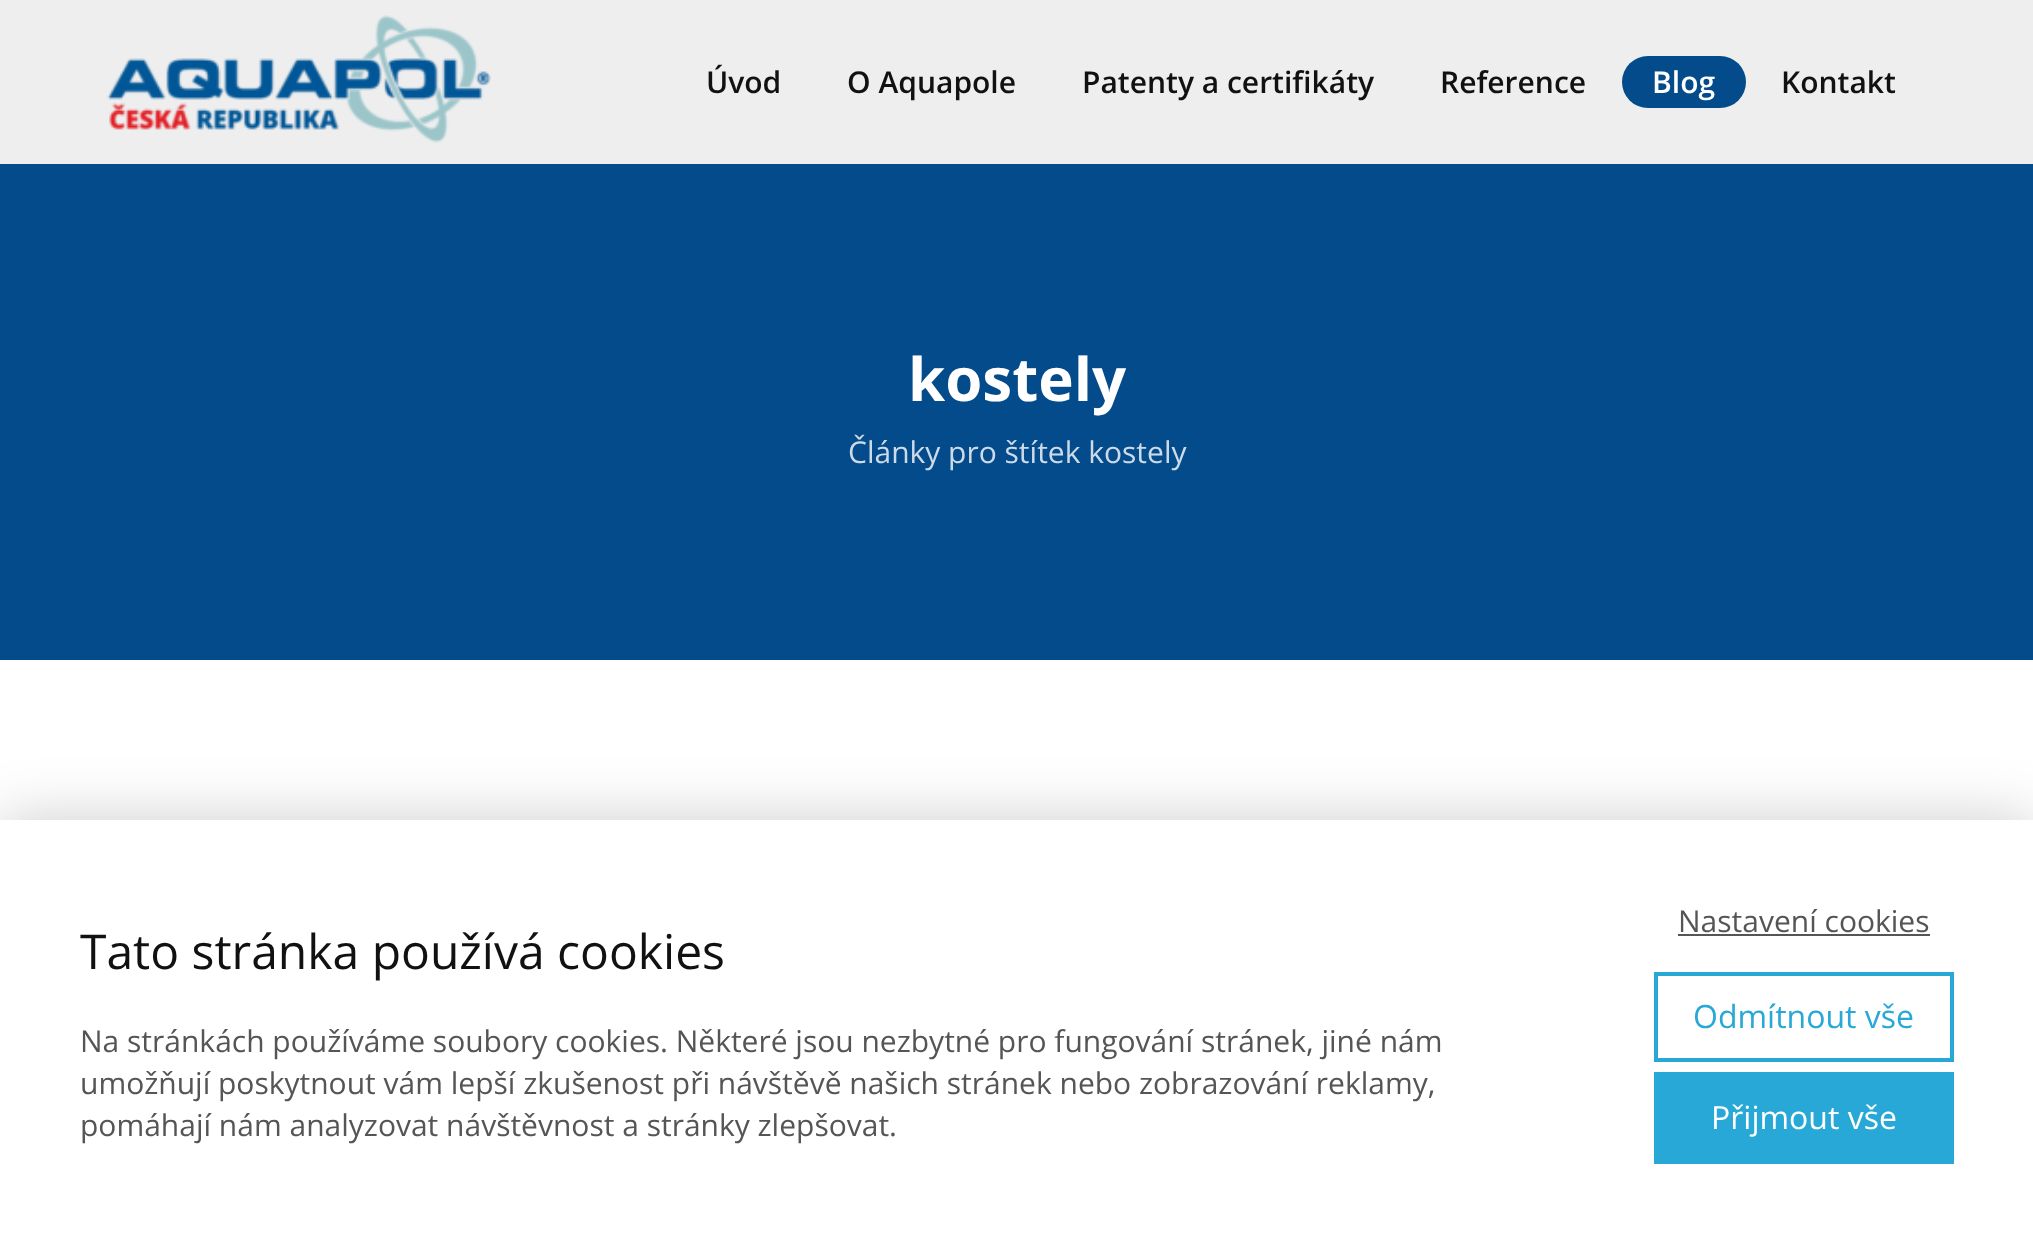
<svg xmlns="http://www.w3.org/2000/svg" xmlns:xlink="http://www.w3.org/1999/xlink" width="2033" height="1244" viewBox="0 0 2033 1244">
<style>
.cls-1{font:600 30px Open Sans;fill:#111111}
.cls-2{font:600 30px Open Sans;fill:#ffffff}
.cls-3{font:bold 60px Open Sans;fill:#ffffff}
.cls-4{font:30px Open Sans;fill:#cddbe8}
.cls-5{font:48px Open Sans;fill:#111111}
.cls-6{font:30px Open Sans;fill:#555555}
.cls-7{font:32px Open Sans;fill:#27a8d7}
.cls-8{font:32px Open Sans;fill:#ffffff}
</style>
<rect width="100%" height="100%" fill="#ffffff"/>
<rect fill="#eeeeee" x="0" y="0" width="2033" height="164"/>
<image xlink:href="image0.png" x="107" y="15" width="384" height="128"/>
<rect fill="#044b8c" x="1622" y="56" width="124" height="52" rx="26"/>
<rect fill="#044b8c" x="0" y="164" width="2033" height="496"/>
<rect fill="#000000" fill-opacity="0.2" filter="blur(30px)" x="0" y="820" width="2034" height="424"/>
<rect fill="#ffffff" x="0" y="820" width="2033" height="424"/>
<rect fill="#555555" x="1678" y="934" width="252" height="2"/>
<rect fill="none" stroke="#27a8d7" stroke-width="4" x="1656" y="974" width="296" height="86"/>
<rect fill="#27a8d7" x="1654" y="1072" width="300" height="92"/>
<text class="cls-1" x="706" y="93">Úvod</text>
<text class="cls-1" x="847" y="93">O Aquapole</text>
<text class="cls-1" x="1082" y="93">Patenty a certifikáty</text>
<text class="cls-1" x="1440" y="93">Reference</text>
<text class="cls-2" x="1652" y="93">Blog</text>
<text class="cls-1" x="1781" y="93">Kontakt</text>
<text class="cls-3" x="908" y="401">kostely</text>
<text class="cls-4" x="848" y="463">Články pro štítek kostely</text>
<text class="cls-5" x="80" y="969">Tato stránka používá cookies</text>
<text class="cls-6"><tspan x="80" y="1052">Na stránkách používáme soubory cookies. Některé jsou nezbytné pro fungování stránek, jiné nám</tspan><tspan x="80" y="1094">umožňují poskytnout vám lepší zkušenost při návštěvě našich stránek nebo zobrazování reklamy,</tspan><tspan x="80" y="1136">pomáhají nám analyzovat návštěvnost a stránky zlepšovat.</tspan></text>
<text class="cls-6" x="1678" y="932">Nastavení cookies</text>
<text class="cls-7" x="1693" y="1028">Odmítnout vše</text>
<text class="cls-8" x="1711" y="1129">Přijmout vše</text>
</svg>
